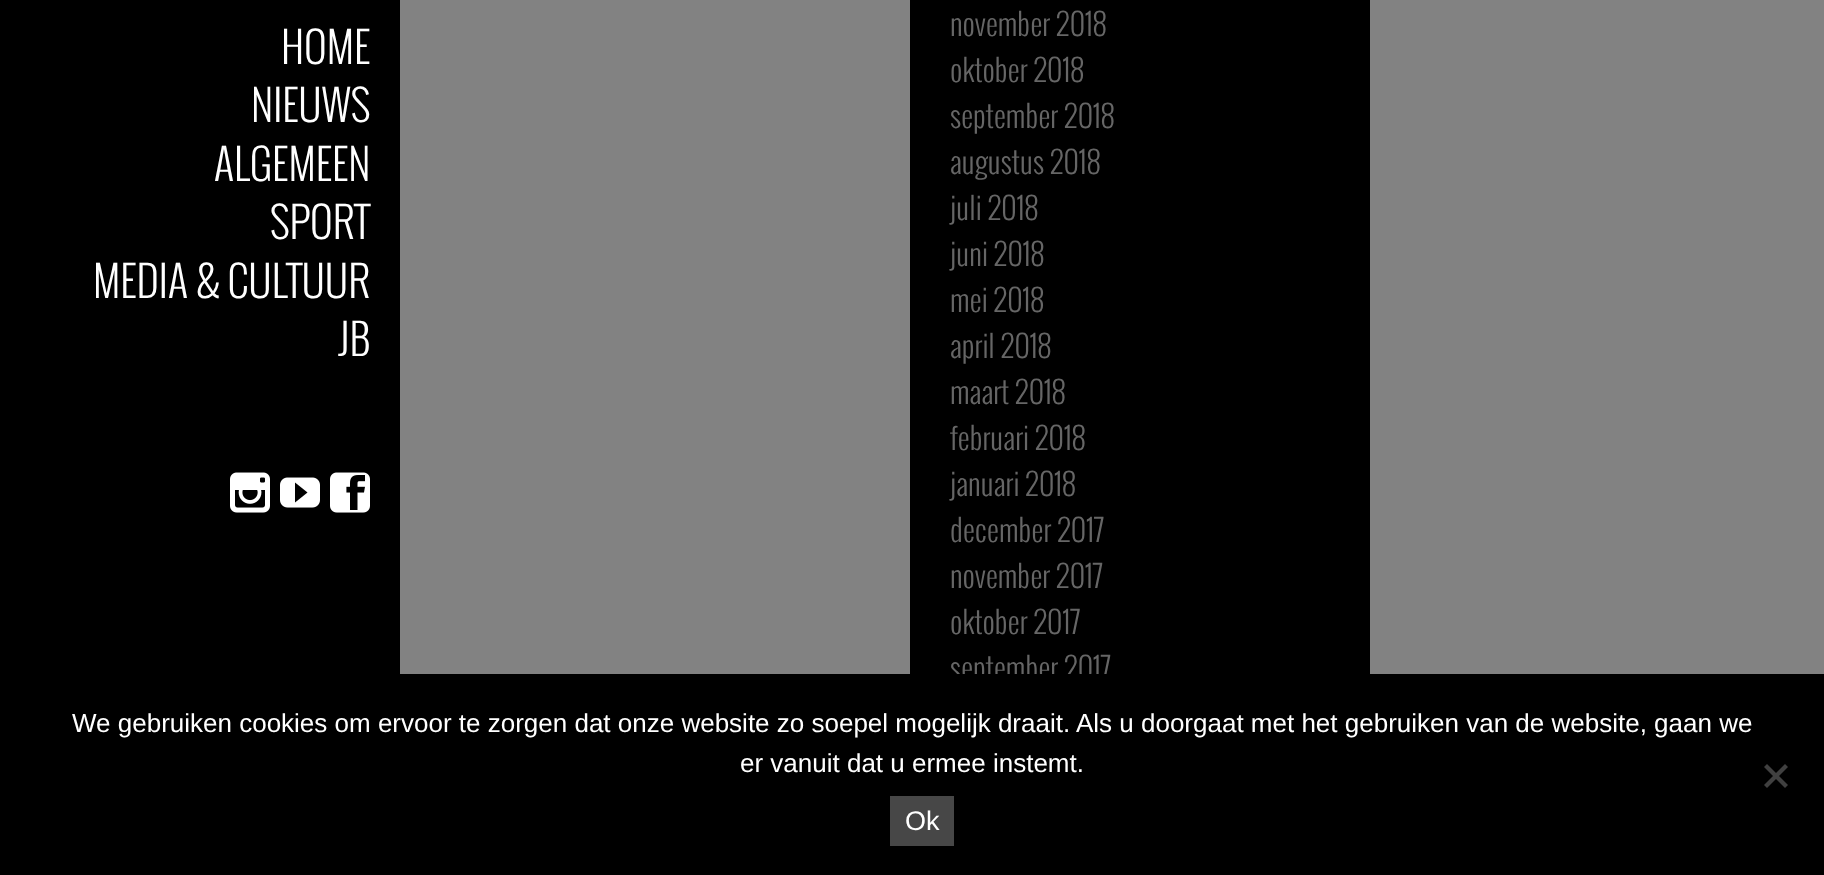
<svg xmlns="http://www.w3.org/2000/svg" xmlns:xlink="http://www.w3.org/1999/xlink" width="1824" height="875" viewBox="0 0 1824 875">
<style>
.cls-1{font:300 30px Oswald;fill:#666666}
.cls-2{font:300 42px Oswald;fill:#ffffff}
.cls-3{font:26px Liberation Sans;fill:#ffffff}
.cls-4{font:27px Liberation Sans;fill:#ffffff}
</style>
<rect width="100%" height="100%" fill="#828282"/>
<rect fill="#000000" x="0" y="0" width="400" height="674"/>
<rect fill="#000000" x="910" y="0" width="460" height="674"/>
<image xlink:href="image0.png" x="230" y="472" width="40" height="41"/>
<image xlink:href="image1.png" x="280" y="477" width="40" height="31"/>
<image xlink:href="image2.png" x="330" y="472" width="40" height="41"/>
<text class="cls-1"><tspan x="950" y="36">november 2018</tspan><tspan x="950" y="82">oktober 2018</tspan><tspan x="950" y="128">september 2018</tspan><tspan x="950" y="174">augustus 2018</tspan><tspan x="950" y="220">juli 2018</tspan><tspan x="950" y="266">juni 2018</tspan><tspan x="950" y="312">mei 2018</tspan><tspan x="950" y="358">april 2018</tspan><tspan x="950" y="404">maart 2018</tspan><tspan x="950" y="450">februari 2018</tspan><tspan x="950" y="496">januari 2018</tspan><tspan x="950" y="542">december 2017</tspan><tspan x="950" y="588">november 2017</tspan><tspan x="950" y="634">oktober 2017</tspan><tspan x="950" y="680">september 2017</tspan></text>
<text class="cls-2" x="281" y="64">HOME</text>
<text class="cls-2" x="251" y="122">NIEUWS</text>
<text class="cls-2" x="214" y="181">ALGEMEEN</text>
<text class="cls-2" x="270" y="239">SPORT</text>
<text class="cls-2" x="93" y="298">MEDIA &amp; CULTUUR</text>
<text class="cls-2" x="338" y="356">JB</text>
<rect fill="#000000" x="0" y="674" width="1824" height="201"/>
<text class="cls-3" x="72" y="732">We gebruiken cookies om ervoor te zorgen dat onze website zo soepel mogelijk draait. Als u doorgaat met het gebruiken van de website, gaan we</text>
<text class="cls-3" x="740" y="772">er vanuit dat u ermee instemt.</text>
<path fill="#404040" d="M1785 764L1788 767L1767 788L1764 785Z"/>
<path fill="#404040" d="M1764 767L1767 764L1788 785L1785 788Z"/>
<rect fill="#474747" x="890" y="796" width="64" height="50"/>
<text class="cls-4" x="905" y="830">Ok</text>
</svg>
